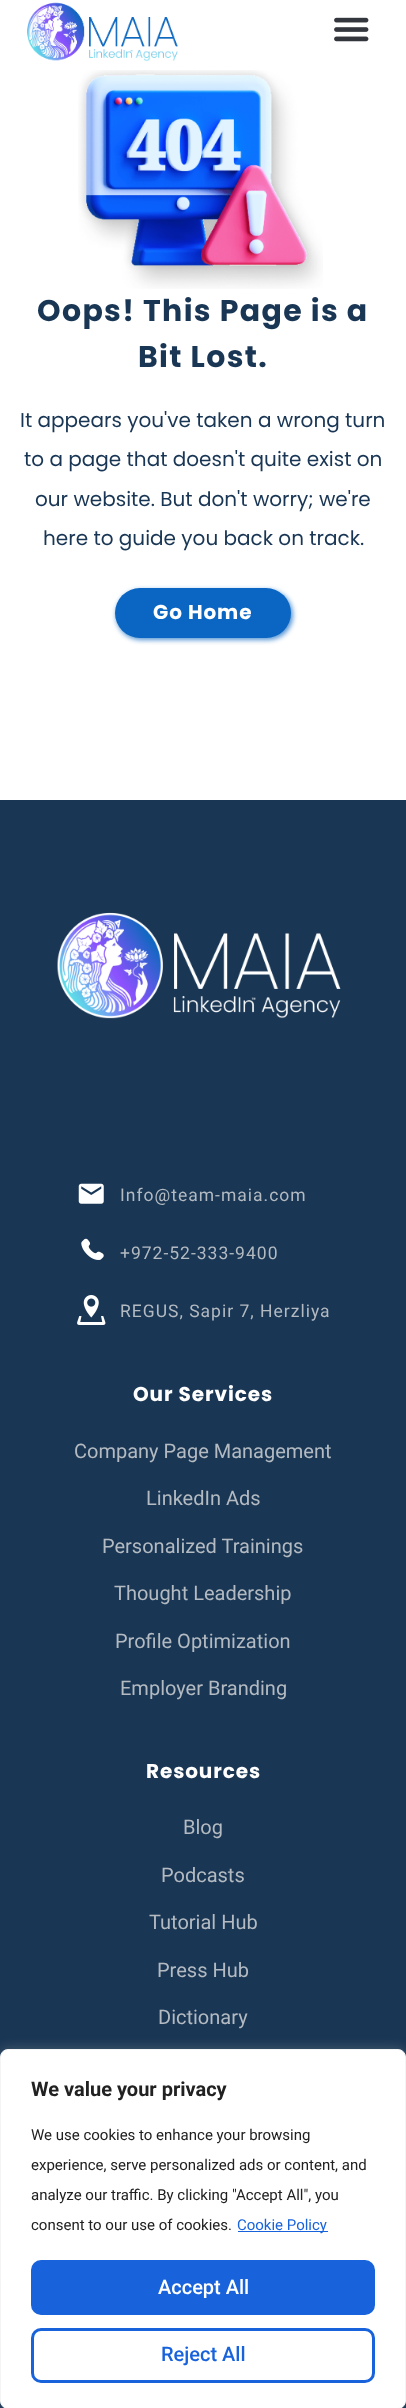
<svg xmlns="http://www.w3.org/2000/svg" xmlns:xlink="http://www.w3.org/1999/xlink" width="406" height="2408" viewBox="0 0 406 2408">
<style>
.cls-1{font:bold 30px Poppins;letter-spacing:1.35px;fill:#193654}
.cls-2{font:20px Poppins;fill:#193654}
.cls-3{font:bold 20px Poppins;letter-spacing:0.9px;fill:#ffffff}
.cls-4{font:17.5px Roboto;letter-spacing:1px;fill:#b3bac1}
.cls-5{font:20px Roboto;fill:#b3bac1}
.cls-6{font:bold 20px Roboto;fill:#212121}
.cls-7{font:15px Roboto;fill:#212121}
.cls-8{font:15px Roboto;fill:#1863dc}
.cls-9{font:500 20px Roboto;fill:#ffffff}
.cls-10{font:500 20px Roboto;fill:#1863dc}
</style>
<rect width="100%" height="100%" fill="#ffffff"/>
<image xlink:href="image0.png" x="27" y="2" width="151" height="60"/>
<image xlink:href="image1.png" x="334" y="17" width="35" height="25"/>
<image xlink:href="image2.png" x="78" y="70" width="245" height="219"/>
<rect fill="#0a66c2" fill-opacity="0.7" filter="blur(2.5px)" x="116" y="590" width="177" height="50" rx="25"/>
<rect fill="#0a66c2" x="115" y="588" width="176" height="50" rx="25"/>
<rect fill="#193654" x="0" y="800" width="406" height="1608"/>
<image xlink:href="image3.png" x="57" y="912" width="284" height="107"/>
<image xlink:href="image4.png" x="78" y="1183" width="26" height="21"/>
<image xlink:href="image5.png" x="81" y="1238" width="23" height="22"/>
<image xlink:href="image6.png" x="77" y="1295" width="29" height="30"/>
<rect fill="#acabab" fill-opacity="0.3" filter="blur(6px)" x="0" y="2048" width="406" height="360" rx="8"/>
<rect fill="#ffffff" stroke="#f4f4f4" x="0.5" y="2049.5" width="405" height="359" rx="7.5"/>
<rect fill="#1863dc" x="238" y="2231" width="90" height="1"/>
<rect fill="#1863dc" stroke="#1863dc" stroke-width="3" x="32.5" y="2261.5" width="341" height="52" rx="8.5"/>
<rect fill="none" stroke="#1863dc" stroke-width="3" x="32.5" y="2329.5" width="341" height="52" rx="8.5"/>
<text class="cls-1" x="37" y="321">Oops! This Page is a</text>
<text class="cls-1" x="138" y="367">Bit Lost.</text>
<text class="cls-2" x="20" y="427">It appears you've taken a wrong turn</text>
<text class="cls-2" x="24" y="466">to a page that doesn't quite exist on</text>
<text class="cls-2" x="35" y="506">our website. But don't worry; we're</text>
<text class="cls-2" x="43" y="545">here to guide you back on track.</text>
<text class="cls-3" x="153" y="619">Go Home</text>
<text class="cls-4" x="120" y="1201">Info@team-maia.com</text>
<text class="cls-4" x="120" y="1259">+972-52-333-9400</text>
<text class="cls-4" x="120" y="1317">REGUS, Sapir 7, Herzliya</text>
<text class="cls-3" x="133" y="1401">Our Services</text>
<text class="cls-5" x="74" y="1458">Company Page Management</text>
<text class="cls-5" x="146" y="1505">LinkedIn Ads</text>
<text class="cls-5" x="102" y="1553">Personalized Trainings</text>
<text class="cls-5" x="114" y="1600">Thought Leadership</text>
<text class="cls-5" x="115" y="1648">Profile Optimization</text>
<text class="cls-5" x="120" y="1695">Employer Branding</text>
<text class="cls-3" x="146" y="1778">Resources</text>
<text class="cls-5" x="183" y="1834">Blog</text>
<text class="cls-5" x="161" y="1882">Podcasts</text>
<text class="cls-5" x="149" y="1929">Tutorial Hub</text>
<text class="cls-5" x="157" y="1977">Press Hub</text>
<text class="cls-5" x="158" y="2024">Dictionary</text>
<text class="cls-6" x="31" y="2096">We value your privacy</text>
<text class="cls-7" x="31" y="2140">We use cookies to enhance your browsing</text>
<text class="cls-7" x="31" y="2170">experience, serve personalized ads or content, and</text>
<text class="cls-7" x="31" y="2200">analyze our traffic. By clicking "Accept All", you</text>
<text class="cls-7" x="31" y="2230">consent to our use of cookies.</text>
<text class="cls-8" x="237" y="2230">Cookie Policy</text>
<text class="cls-9" x="158" y="2294">Accept All</text>
<text class="cls-10" x="161" y="2361">Reject All</text>
</svg>
